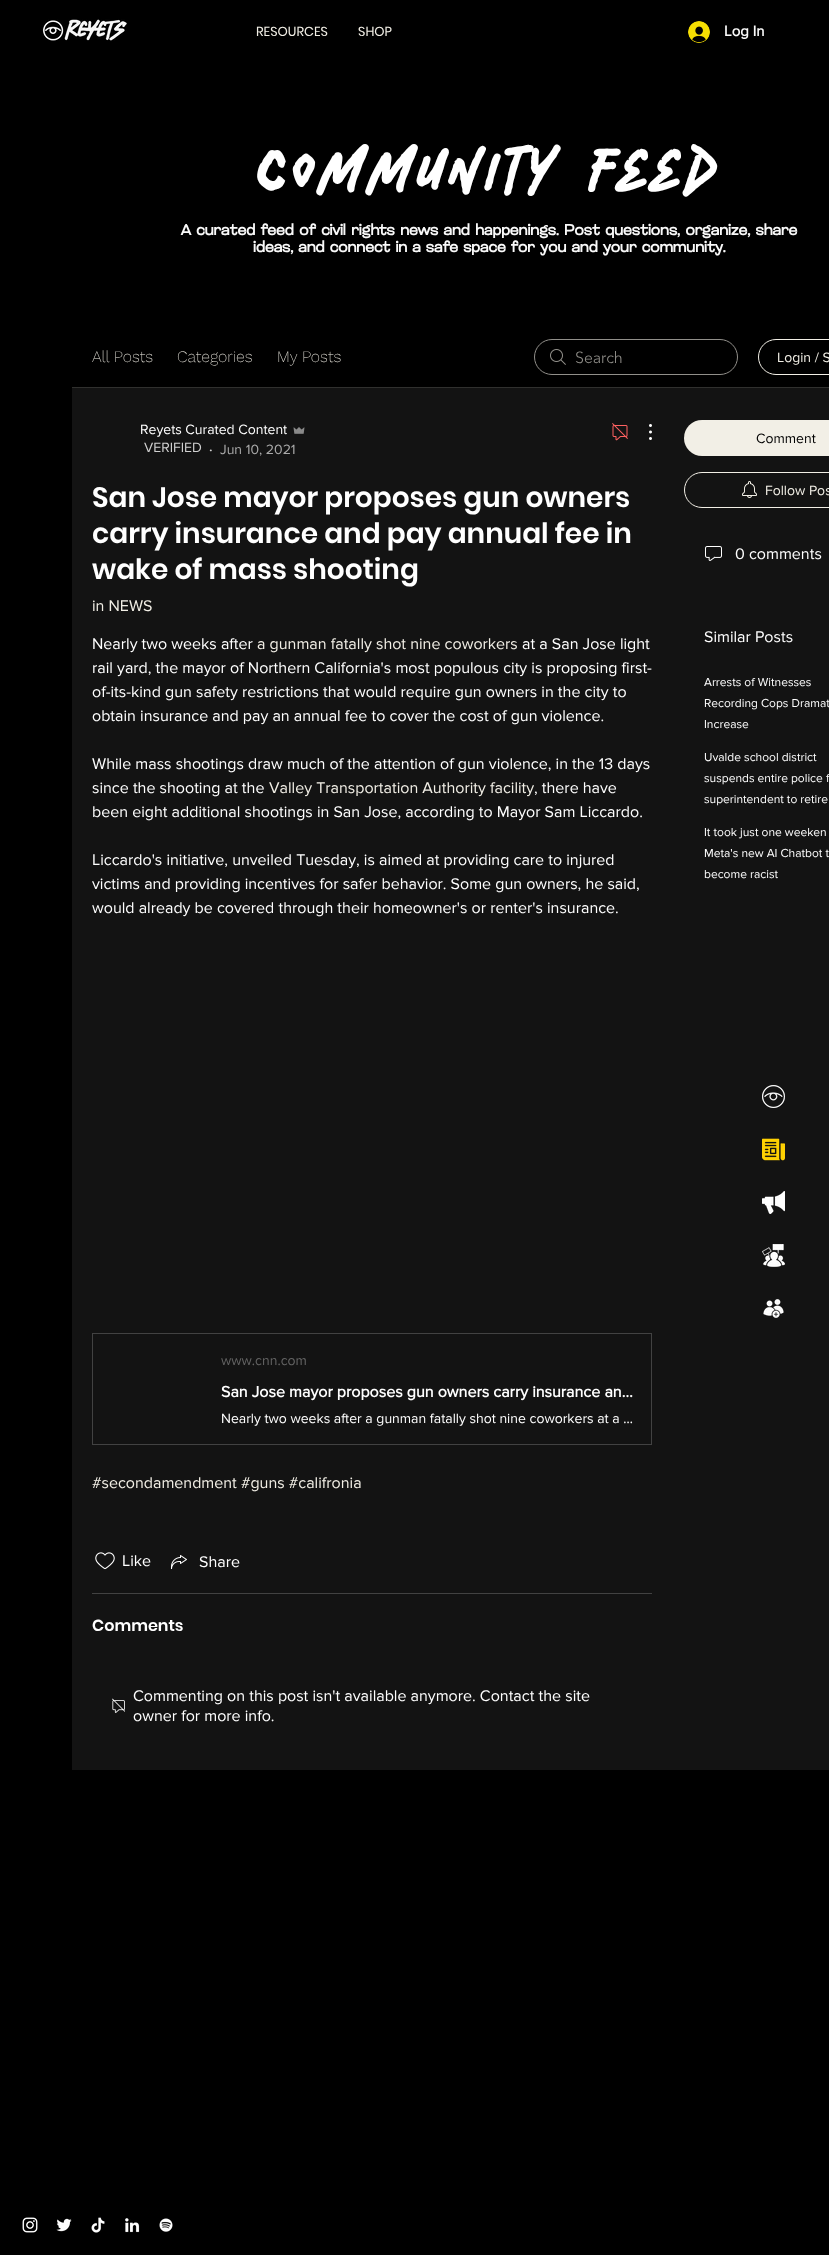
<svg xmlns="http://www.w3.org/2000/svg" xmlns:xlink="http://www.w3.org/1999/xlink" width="829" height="2255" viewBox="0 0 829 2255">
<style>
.cls-1{font:13px Poppins;fill:#f2efe6}
.cls-2{font:bold 15px 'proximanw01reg';fill:#f9f9f9}
.cls-3{font:57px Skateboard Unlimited;letter-spacing:5.75px;fill:#ffffff}
.cls-4{font:bold 15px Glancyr;fill:#f9f9f9}
.cls-5{font:200 16px Work Sans;fill:#f2efe6}
.cls-6{font:300 16px 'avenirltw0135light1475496';fill:#918f8a}
.cls-7{font:14px 'proximanw01reg';fill:#f2efe6}
.cls-8{font:14px 'proximanw01reg';fill:#ffffff}
.cls-9{font:14px 'proximanw01reg';fill:#d0d0d0}
.cls-10{font:bold 14px 'proximanw01reg';fill:#d0d0d0}
.cls-11{font:14px 'proximanw01reg';fill:#aaaaaa}
.cls-12{font:600 28px Poppins;fill:#ffffff}
.cls-13{font:16px 'proximanw01reg';fill:#f2efe6}
.cls-14{font:16px 'proximanw01reg';fill:#ffffff}
.cls-15{font:14px 'proximanw01reg';fill:#646464}
.cls-16{font:bold 16px 'proximanw01reg';fill:#ffffff}
.cls-17{font:600 16px Poppins;fill:#ffffff}
.cls-18{font:14px 'proximanw01reg';fill:#000000}
.cls-19{font:12px 'proximanw01reg';fill:#ffffff}
</style>
<rect width="100%" height="100%" fill="#000000"/>
<image xlink:href="image0.png" x="42" y="19" width="85" height="22"/>
<image xlink:href="image1.png" x="688" y="21" width="22" height="22"/>
<rect fill="#30302e" x="72" y="387" width="757" height="1"/>
<image xlink:href="image2.png" x="550" y="349" width="16" height="16"/>
<rect fill="none" stroke="#918f8a" x="534.5" y="339.5" width="203" height="35" rx="17.5"/>
<rect fill="none" stroke="#f2efe6" x="758.5" y="339.5" width="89" height="35" rx="17.5"/>
<rect fill="#131313" x="72" y="388" width="757" height="1382"/>
<image xlink:href="image3.png" x="293" y="427" width="12" height="7"/>
<image xlink:href="image4.png" x="612" y="423" width="16" height="18"/>
<image xlink:href="image5.png" x="649" y="424" width="3" height="16"/>
<rect fill="none" stroke="#424242" x="92.5" y="1333.5" width="559" height="111"/>
<image xlink:href="image6.png" x="95" y="1552" width="20" height="18"/>
<image xlink:href="image7.png" x="171" y="1555" width="16" height="14"/>
<rect fill="#424242" x="92" y="1593" width="560" height="1"/>
<image xlink:href="image8.png" x="112" y="1698" width="13" height="15"/>
<rect fill="#f2efe6" x="684" y="420" width="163" height="36" rx="18"/>
<rect fill="none" stroke="#f2efe6" x="684.5" y="472.5" width="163" height="35" rx="17.5"/>
<image xlink:href="image9.png" x="742" y="481" width="15" height="17"/>
<image xlink:href="image10.png" x="705" y="546" width="17" height="15"/>
<image xlink:href="image11.png" x="762" y="1085" width="23" height="23"/>
<image xlink:href="image12.png" x="762" y="1138" width="23" height="23"/>
<image xlink:href="image13.png" x="762" y="1191" width="23" height="23"/>
<image xlink:href="image14.png" x="762" y="1244" width="23" height="23"/>
<image xlink:href="image15.png" x="763" y="1299" width="21" height="19"/>
<image xlink:href="image16.png" x="22" y="2217" width="16" height="16"/>
<image xlink:href="image17.png" x="56" y="2218" width="16" height="14"/>
<image xlink:href="image18.png" x="91" y="2217" width="14" height="16"/>
<image xlink:href="image19.png" x="125" y="2218" width="15" height="15"/>
<image xlink:href="image20.png" x="159" y="2218" width="14" height="14"/>
<text class="cls-1" x="256" y="36">RESOURCES</text>
<text class="cls-1" x="358" y="36">SHOP</text>
<text class="cls-2" x="724" y="36">Log In</text>
<text class="cls-3" x="257" y="190">COMMUNITY FEED</text>
<text class="cls-4" x="181" y="235" word-spacing="1.5">A curated feed of civil rights news and happenings. Post questions, organize, share</text>
<text class="cls-4" x="253" y="252" word-spacing="1.25">ideas, and connect in a safe space for you and your community.</text>
<text class="cls-5" x="92" y="362">All Posts</text>
<text class="cls-5" x="177" y="362">Categories</text>
<text class="cls-5" x="277" y="362">My Posts</text>
<text class="cls-6" x="575" y="363">Search</text>
<text class="cls-7" x="777" y="362">Login / S</text>
<text class="cls-8" x="140" y="434">Reyets Curated Content</text>
<text class="cls-9" x="144" y="452">VERIFIED</text>
<text class="cls-10" x="209" y="454">·</text>
<text class="cls-11" x="220" y="454">Jun 10, 2021</text>
<text class="cls-12"><tspan x="92" y="507">San Jose mayor proposes gun owners</tspan><tspan x="92" y="543">carry insurance and pay annual fee in</tspan><tspan x="92" y="579">wake of mass shooting</tspan></text>
<text class="cls-13" x="92" y="611">in NEWS</text>
<text class="cls-14" x="92" y="649">Nearly two weeks after</text>
<text class="cls-13" x="257" y="649">a gunman fatally shot nine coworkers</text>
<text class="cls-14" x="522" y="649">at a San Jose light</text>
<text class="cls-14"><tspan x="92" y="673">rail yard, the mayor of Northern California's most populous city is proposing first-</tspan><tspan x="92" y="697">of-its-kind gun safety restrictions that would require gun owners in the city to</tspan><tspan x="92" y="721">obtain insurance and pay an annual fee to cover the cost of gun violence.</tspan></text>
<text class="cls-14"><tspan x="92" y="769">While mass shootings draw much of the attention of gun violence, in the 13 days</tspan><tspan x="92" y="793">since the shooting at the</tspan></text>
<text class="cls-13" x="269" y="793">Valley Transportation Authority facility</text>
<text class="cls-14" x="534" y="793">, there have</text>
<text class="cls-14" x="92" y="817">been eight additional shootings in San Jose, according to Mayor Sam Liccardo.</text>
<text class="cls-14"><tspan x="92" y="865">Liccardo's initiative, unveiled Tuesday, is aimed at providing care to injured</tspan><tspan x="92" y="889">victims and providing incentives for safer behavior. Some gun owners, he said,</tspan><tspan x="92" y="913">would already be covered through their homeowner's or renter's insurance.</tspan></text>
<text class="cls-15" x="221" y="1365">www.cnn.com</text>
<text class="cls-16" x="221" y="1397">San Jose mayor proposes gun owners carry insurance an…</text>
<text class="cls-8" x="221" y="1423">Nearly two weeks after a gunman fatally shot nine coworkers at a …</text>
<text class="cls-13" x="92" y="1488">#secondamendment #guns #califronia</text>
<text class="cls-14" x="122" y="1566">Like</text>
<text class="cls-14" x="199" y="1567">Share</text>
<text class="cls-17" x="92" y="1631">Comments</text>
<text class="cls-14"><tspan x="133" y="1701">Commenting on this post isn't available anymore. Contact the site</tspan><tspan x="133" y="1721">owner for more info.</tspan></text>
<text class="cls-18" x="756" y="443">Comment</text>
<text class="cls-7" x="765" y="495">Follow Pos</text>
<text class="cls-14" x="735" y="559">0 comments</text>
<text class="cls-14" x="704" y="642">Similar Posts</text>
<text class="cls-19"><tspan x="704" y="686">Arrests of Witnesses</tspan><tspan x="704" y="707">Recording Cops Dramat</tspan><tspan x="704" y="728">Increase</tspan></text>
<text class="cls-19"><tspan x="704" y="761">Uvalde school district</tspan><tspan x="704" y="782">suspends entire police f</tspan><tspan x="704" y="803">superintendent to retire</tspan></text>
<text class="cls-19"><tspan x="704" y="836">It took just one weeken</tspan><tspan x="704" y="857">Meta's new AI Chatbot t</tspan><tspan x="704" y="878">become racist</tspan></text>
</svg>
